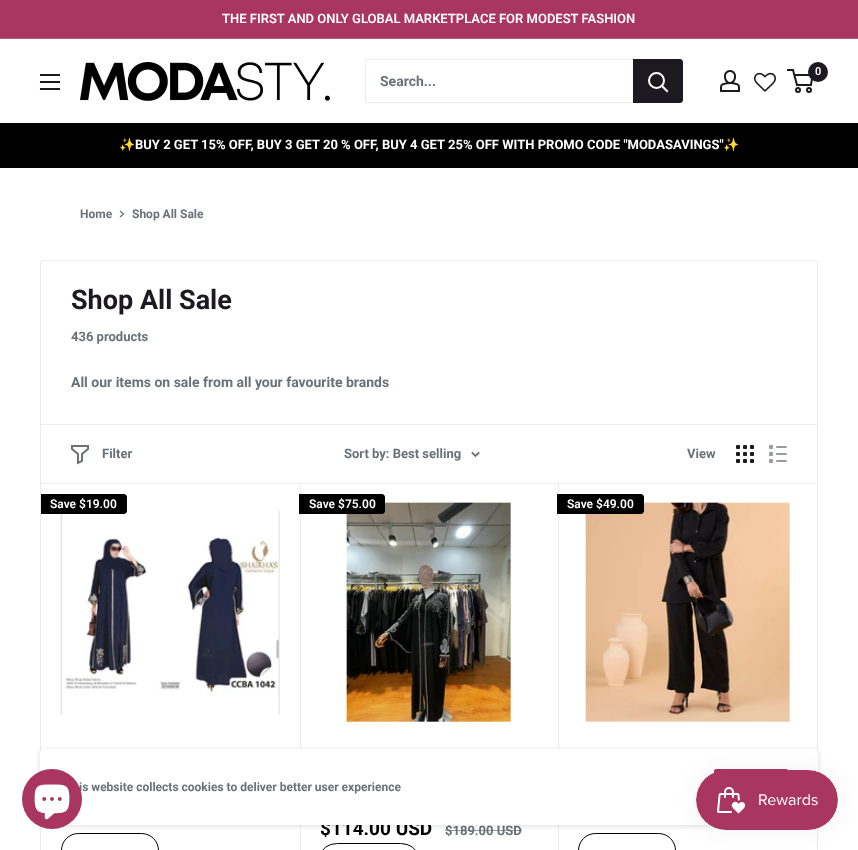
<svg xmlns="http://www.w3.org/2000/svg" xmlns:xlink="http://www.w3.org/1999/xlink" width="858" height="850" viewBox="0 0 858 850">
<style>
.cls-1{font:600 13px Roboto;fill:#ffffff}
.cls-2{font:600 11px Roboto;fill:#ffffff}
.cls-3{font:bold 14px Roboto;fill:#677279}
.cls-4{font:bold 13px Noto Color Emoji;fill:#ffffff}
.cls-5{font:bold 13px Roboto;fill:#ffffff}
.cls-6{font:bold 12px Roboto;fill:#677279}
.cls-7{font:bold 27px Roboto;fill:#1c1920}
.cls-8{font:bold 13px Roboto;fill:#677279}
.cls-9{font:600 12px Roboto;fill:#ffffff}
.cls-10{font:bold 19px Roboto;fill:#000000}
</style>
<rect width="100%" height="100%" fill="#ffffff"/>
<rect fill="#a9365f" x="0" y="0" width="858" height="38"/>
<rect fill="#af5f7b" x="0" y="38" width="858" height="1"/>
<image xlink:href="image0.png" x="80" y="62" width="250" height="39"/>
<image xlink:href="image1.png" x="720" y="70" width="20" height="22"/>
<image xlink:href="image2.png" x="754" y="72" width="22" height="20"/>
<circle fill="none" stroke="#1c1920" stroke-width="2" cx="798" cy="90" r="2"/>
<circle fill="none" stroke="#1c1920" stroke-width="2" cx="809" cy="90" r="2"/>
<path fill="none" stroke="#1c1920" stroke-width="2" d="M794.5 75H812.5L811 85H797L793 70H787"/>
<circle fill="#1c1920" cx="818" cy="72" r="10"/>
<image xlink:href="image3.png" x="40" y="74" width="20" height="16"/>
<path fill="#ebebeb" d="M366 102C366 103 367 103 368 103H680C682 103 683 102 683 100V62C683 61 683 60 682 60V93C682 95 684 102 679 102Z"/>
<path fill="#ebebeb" d="M369 60H682C682 59 681 59 680 59H368C366 59 365 60 365 62V100C365 101 365 102 366 102V69C366 67 364 60 369 60Z"/>
<path fill="#1c1920" d="M633 59H680C681.5 59 683 60.5 683 62V100C683 101.5 681.5 103 680 103H633Z"/>
<path fill="none" stroke="#ffffff" stroke-width="2" stroke-linecap="square" d="M667 91L662 86"/>
<circle fill="none" stroke="#ffffff" stroke-width="2" cx="656.5" cy="80.5" r="7.5"/>
<rect fill="#000000" x="0" y="123" width="858" height="45"/>
<path fill="none" stroke="#677279" stroke-width="1.3" stroke-linecap="square" d="M120.5 211.5L123.5 214L120.5 216.5"/>
<rect fill="none" stroke="#ececec" x="40.5" y="260.5" width="777" height="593" rx="2.5"/>
<rect fill="#ececec" x="41" y="424" width="776" height="1"/>
<rect fill="#ececec" x="300" y="483" width="1" height="367"/>
<rect fill="#ececec" x="558" y="483" width="1" height="367"/>
<rect fill="#ececec" x="41" y="483" width="776" height="1"/>
<path fill="none" stroke="#677279" stroke-width="2" stroke-linecap="square" d="M88 449L82 454V461L78 463V454L72 449V446H88Z"/>
<path fill="none" stroke="#677279" stroke-width="1.9" stroke-linecap="square" d="M478.5 453L475.5 456L472.5 453"/>
<image xlink:href="image4.png" x="736" y="445" width="18" height="18"/>
<image xlink:href="image5.png" x="769" y="445" width="18" height="18"/>
<image xlink:href="image6.png" x="60" y="510" width="220" height="205"/>
<path fill="#000000" d="M41 494H124C125.5 494 127 495.5 127 497V511C127 512.5 125.5 514 124 514H41Z"/>
<rect fill="none" stroke="#000000" x="61.5" y="833.5" width="97" height="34" rx="17"/>
<image xlink:href="image7.png" x="346" y="502" width="165" height="220"/>
<path fill="#000000" d="M299 494H382C383.5 494 385 495.5 385 497V511C385 512.5 383.5 514 382 514H299Z"/>
<rect fill="none" stroke="#000000" x="320.5" y="843.5" width="97" height="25" rx="17"/>
<image xlink:href="image8.png" x="585" y="502" width="205" height="220"/>
<path fill="#000000" d="M557 494H641C642.5 494 644 495.5 644 497V511C644 512.5 642.5 514 641 514H557Z"/>
<rect fill="none" stroke="#000000" x="578.5" y="833.5" width="97" height="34" rx="17"/>
<text class="cls-1" x="222" y="23">THE FIRST AND ONLY GLOBAL MARKETPLACE FOR MODEST FASHION</text>
<text class="cls-2" x="815" y="75">0</text>
<text class="cls-3" x="380" y="86">Search...</text>
<text class="cls-4" x="119" y="149">✨</text>
<text class="cls-5" x="135" y="149">BUY 2 GET 15% OFF, BUY 3 GET 20 % OFF, BUY 4 GET 25% OFF WITH PROMO CODE "MODASAVINGS"</text>
<text class="cls-4" x="723" y="149">✨</text>
<text class="cls-6" x="80" y="218">Home</text>
<text class="cls-6" x="132" y="218">Shop All Sale</text>
<text class="cls-7" x="71" y="309">Shop All Sale</text>
<text class="cls-8" x="71" y="341">436 products</text>
<text class="cls-3" x="71" y="387">All our items on sale from all your favourite brands</text>
<text class="cls-8" x="102" y="458">Filter</text>
<text class="cls-8" x="344" y="458">Sort by: Best selling</text>
<text class="cls-8" x="687" y="458">View</text>
<text class="cls-9" x="50" y="508">Save $19.00</text>
<text class="cls-9" x="309" y="508">Save $75.00</text>
<text class="cls-10" x="320" y="835">$114.00 USD</text>
<text class="cls-8" x="445" y="835">$189.00 USD</text>
<rect fill="#677279" fill-opacity="0.7" x="445" y="830" width="77" height="1"/>
<text class="cls-9" x="567" y="508">Save $49.00</text>
<rect fill="#000000" fill-opacity="0.1" filter="blur(2px)" x="39" y="749" width="780" height="78" rx="4"/>
<rect fill="#ffffff" x="40" y="749" width="778" height="76" rx="3"/>
<text class="cls-6" x="79" y="791">is website collects cookies to deliver better user experience</text>
<circle fill="#a9365f" cx="52" cy="799" r="30"/>
<image xlink:href="image10.png" x="34" y="784" width="36" height="36"/>
<rect fill="#a9365f" x="714" y="769" width="74" height="36" rx="2"/>
<rect fill="#000000" fill-opacity="0.05" filter="blur(12.5px)" x="696" y="770" width="142" height="60" rx="30"/>
<image xlink:href="image9.png" x="696" y="770" width="142" height="60"/>
</svg>
